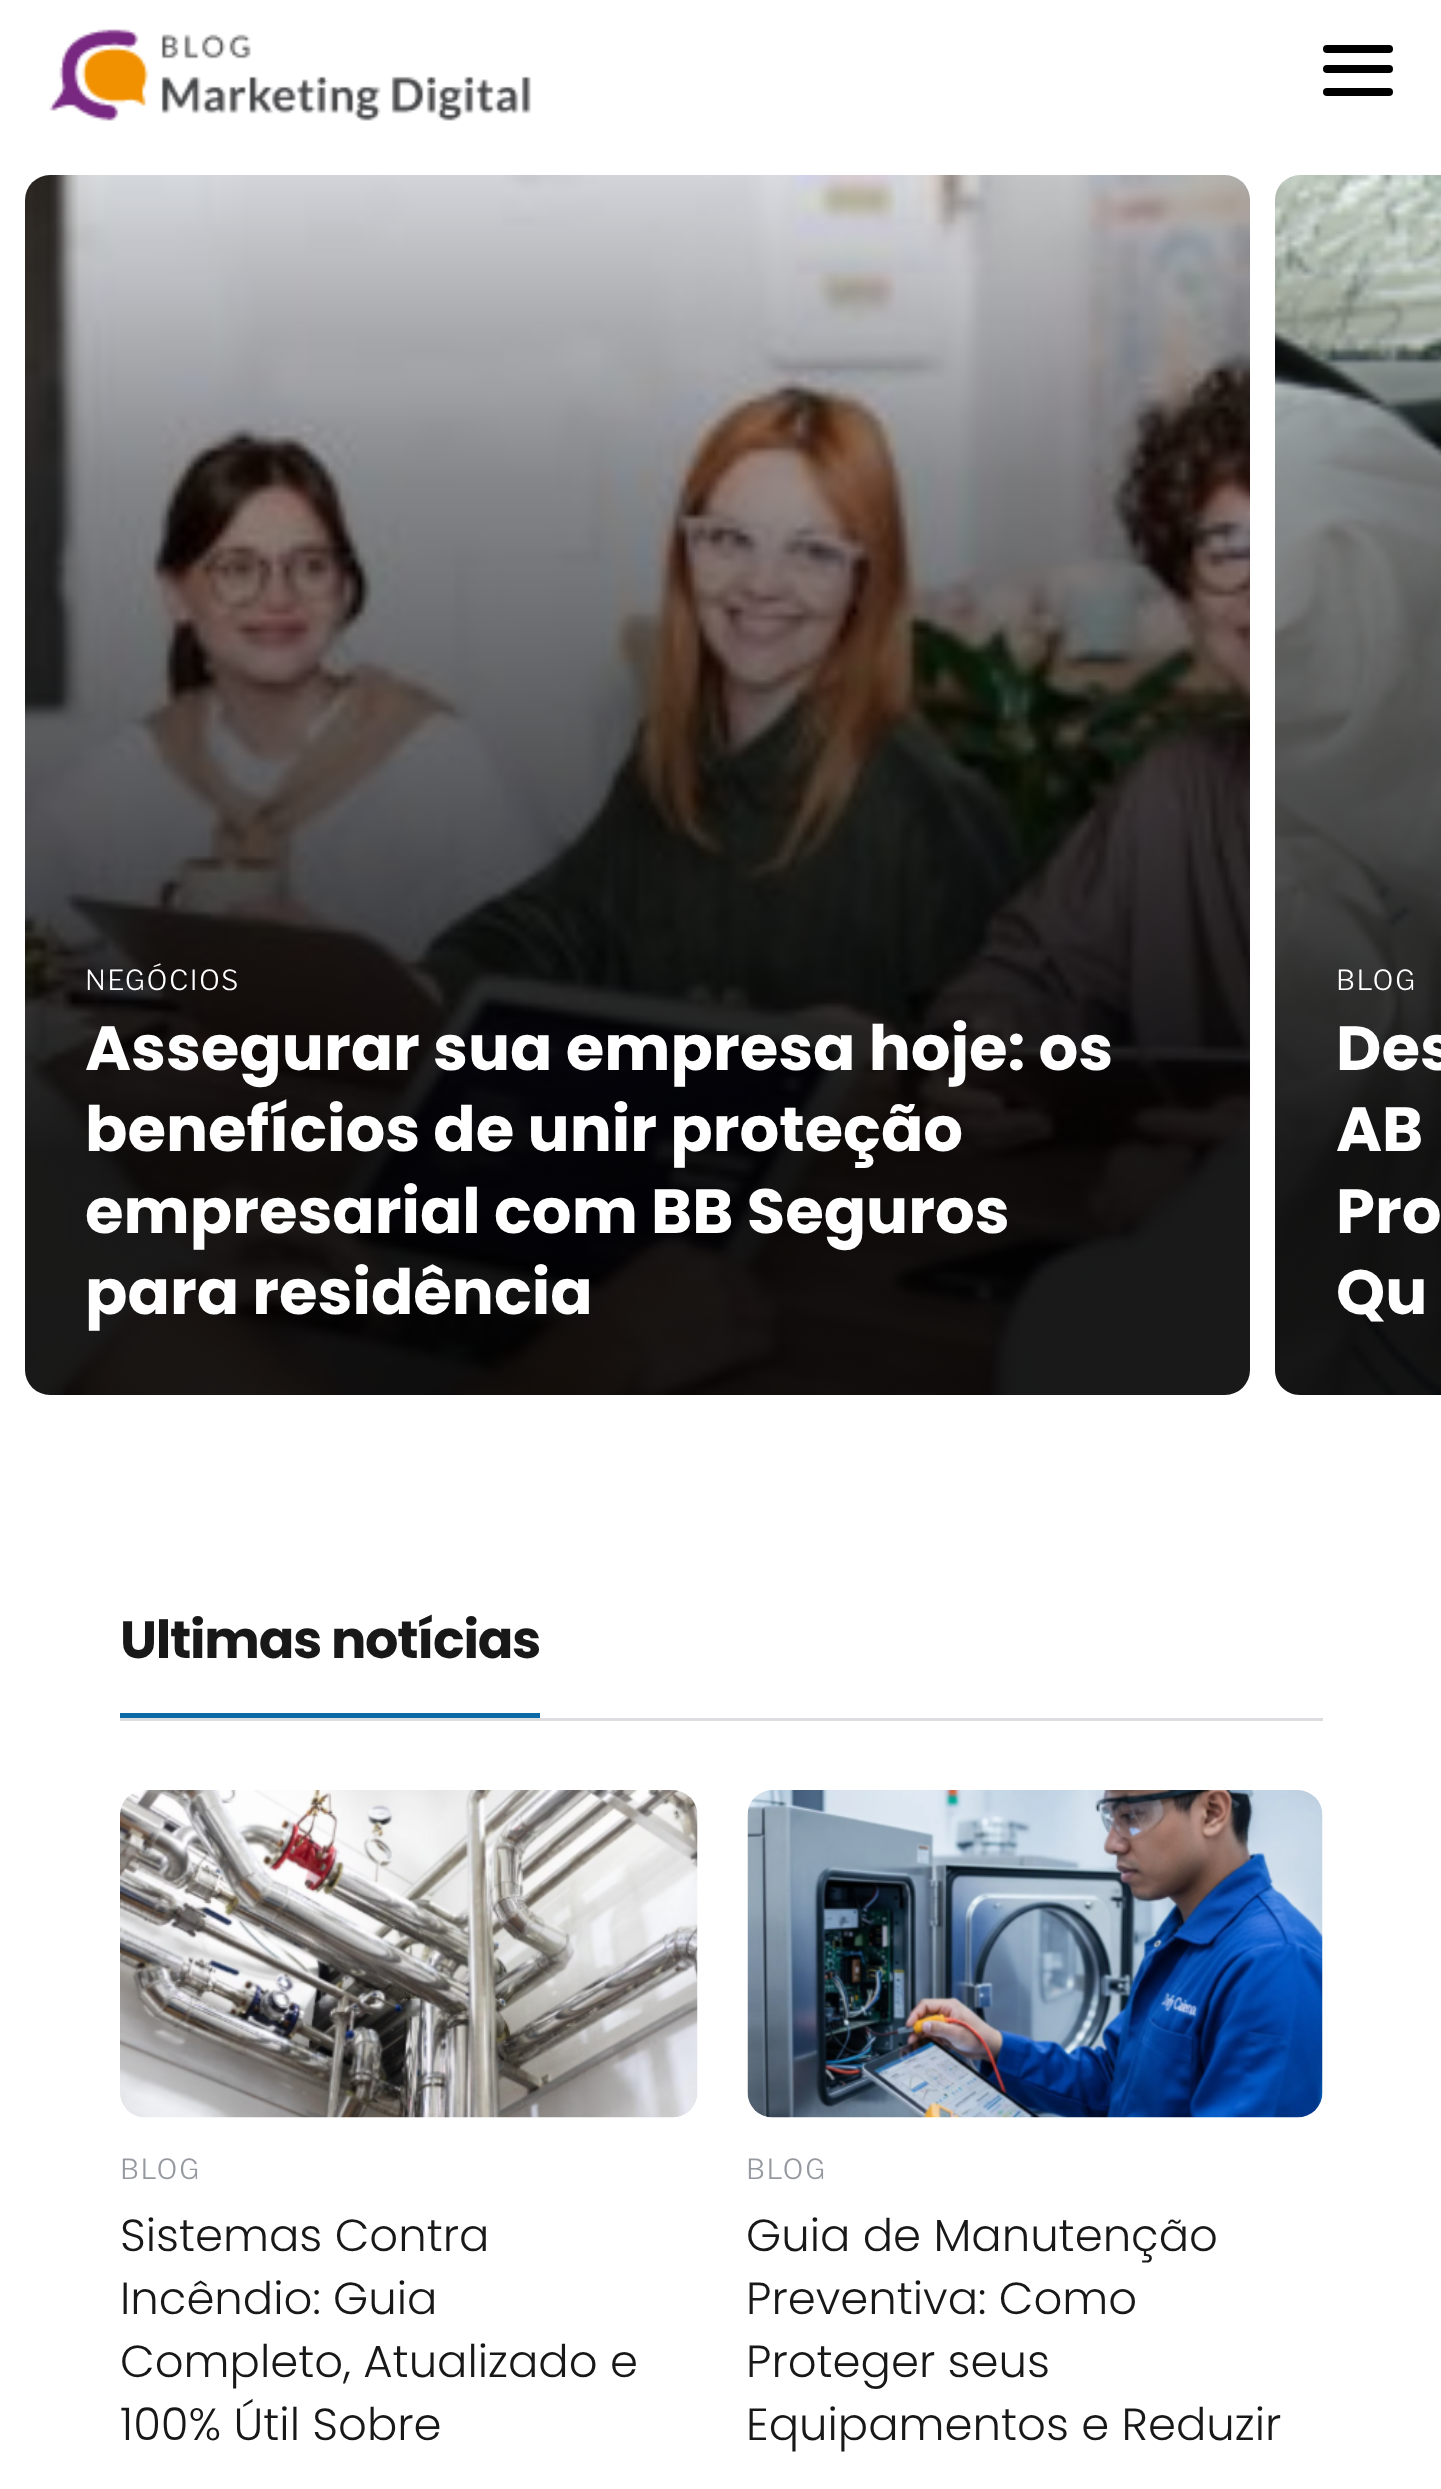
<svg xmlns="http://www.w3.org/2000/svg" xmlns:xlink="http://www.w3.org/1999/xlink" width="1441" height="2489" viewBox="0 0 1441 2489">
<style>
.cls-1{font:100 27.5px Libre Franklin;letter-spacing:1.5px;fill:#ffffff}
.cls-2{font:bold 62.5px Poppins;fill:#ffffff}
.cls-3{font:bold 52.5px Poppins;letter-spacing:-1.25px;fill:#181818}
.cls-4{font:100 27.5px Libre Franklin;letter-spacing:1.5px;fill:#9699a0}
.cls-5{font:300 45px Poppins;fill:#181818}
</style>
<defs>
<linearGradient id="g1" gradientUnits="userSpaceOnUse" x1="638" y1="1395" x2="638" y2="175"><stop offset="0.2" stop-color="#000000" stop-opacity="0.9"/><stop offset="0.75" stop-color="#000000" stop-opacity="0.4"/><stop offset="1" stop-color="#000000" stop-opacity="0"/></linearGradient>
<linearGradient id="g2" gradientUnits="userSpaceOnUse" x1="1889" y1="1395" x2="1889" y2="175"><stop offset="0.2" stop-color="#000000" stop-opacity="0.9"/><stop offset="0.75" stop-color="#000000" stop-opacity="0.4"/><stop offset="1" stop-color="#000000" stop-opacity="0"/></linearGradient>
</defs>
<rect width="100%" height="100%" fill="#ffffff"/>
<image xlink:href="image0.png" x="49" y="29" width="482" height="92"/>
<rect fill="#000000" x="1323" y="45" width="70" height="8" rx="4"/>
<rect fill="#000000" x="1323" y="65" width="70" height="8" rx="4"/>
<rect fill="#000000" x="1323" y="88" width="70" height="8" rx="4"/>
<image xlink:href="image1.png" x="25" y="175" width="1225" height="1220"/>
<rect fill="url(#g1)" x="25" y="175" width="1225" height="1220" rx="25"/>
<image xlink:href="image2.png" x="1275" y="175" width="166" height="1220"/>
<path fill="url(#g2)" d="M1300 175H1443V1395H1300C1286 1395 1275 1384 1275 1370V200C1275 186 1286 175 1300 175Z"/>
<rect fill="#dcdde0" x="120" y="1718" width="1203" height="3"/>
<rect fill="#0b6aa5" x="120" y="1713" width="420" height="5"/>
<image xlink:href="image3.png" x="120" y="1790" width="578" height="328"/>
<image xlink:href="image4.png" x="747" y="1790" width="576" height="328"/>
<text class="cls-1" x="85" y="990">NEGÓCIOS</text>
<text class="cls-2"><tspan x="85" y="1070">Assegurar sua empresa hoje: os</tspan><tspan x="85" y="1151">benefícios de unir proteção</tspan><tspan x="85" y="1233">empresarial com BB Seguros</tspan><tspan x="85" y="1314">para residência</tspan></text>
<text class="cls-1" x="1336" y="990">BLOG</text>
<text class="cls-2"><tspan x="1336" y="1070">Des</tspan><tspan x="1336" y="1151">AB</tspan><tspan x="1336" y="1233">Pro</tspan><tspan x="1336" y="1314">Qu</tspan></text>
<text class="cls-3" x="120" y="1658">Ultimas notícias</text>
<text class="cls-4" x="120" y="2179">BLOG</text>
<text class="cls-5"><tspan x="120" y="2251">Sistemas Contra</tspan><tspan x="120" y="2314">Incêndio: Guia</tspan><tspan x="120" y="2377">Completo, Atualizado e</tspan><tspan x="120" y="2440">100% Útil Sobre</tspan></text>
<text class="cls-4" x="746" y="2179">BLOG</text>
<text class="cls-5"><tspan x="746" y="2251">Guia de Manutenção</tspan><tspan x="746" y="2314">Preventiva: Como</tspan><tspan x="746" y="2377">Proteger seus</tspan><tspan x="746" y="2440">Equipamentos e Reduzir</tspan></text>
</svg>
